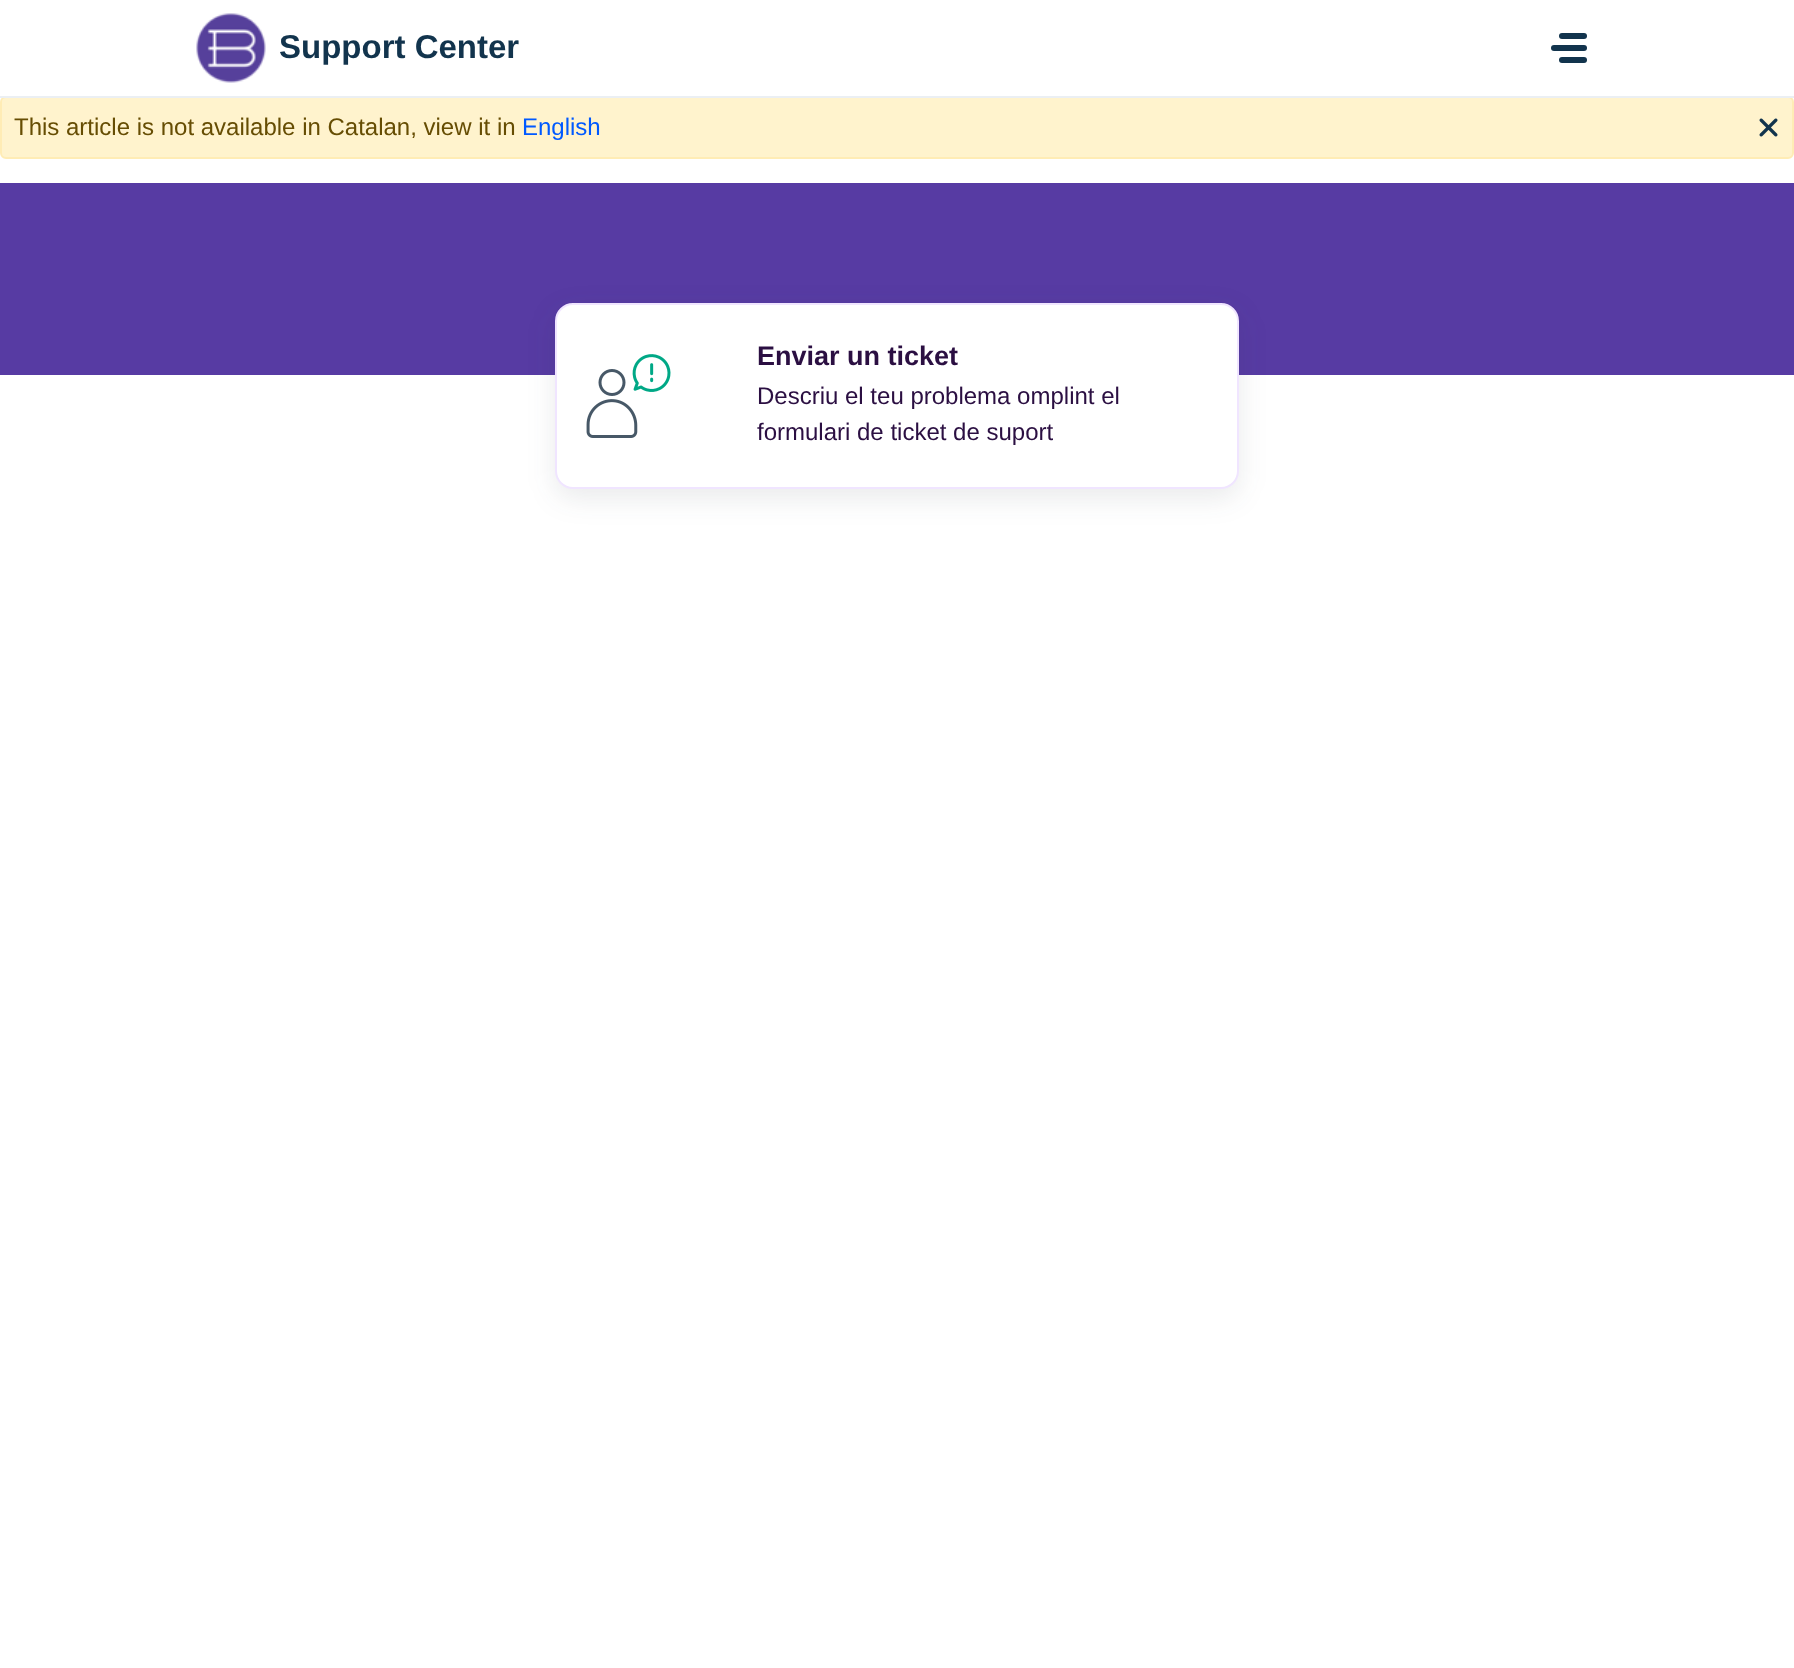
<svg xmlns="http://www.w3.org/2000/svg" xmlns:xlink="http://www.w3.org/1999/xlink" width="1794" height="1668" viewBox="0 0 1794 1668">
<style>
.cls-1{font:bold 33px Liberation Sans;fill:#12344d}
.cls-2{font:24px Liberation Sans;fill:#664d03}
.cls-3{font:24px Liberation Sans;fill:#0059ff}
.cls-4{font:bold 27px Liberation Sans;fill:#2b0f42}
.cls-5{font:24px Liberation Sans;fill:#2b0f42}
</style>
<rect width="100%" height="100%" fill="#ffffff"/>
<rect fill="#fff3cd" stroke="#ffecb5" stroke-width="2" x="1" y="97" width="1792" height="61" rx="5"/>
<rect fill="#ebeff3" x="0" y="96" width="1794" height="2"/>
<image xlink:href="image0.png" x="196" y="13" width="70" height="70"/>
<rect fill="#12344d" x="1559" y="33" width="28" height="6" rx="3"/>
<rect fill="#12344d" x="1551" y="45" width="36" height="6" rx="3"/>
<rect fill="#12344d" x="1559" y="57" width="28" height="6" rx="3"/>
<image xlink:href="image1.png" x="1759" y="118" width="19" height="19"/>
<rect fill="#573ba3" x="0" y="183" width="1794" height="192"/>
<rect fill="#27313a" fill-opacity="0.1" filter="blur(14px)" x="555" y="312" width="684" height="186" rx="18"/>
<rect fill="#ffffff" stroke="#f0e5ff" stroke-width="2" x="556" y="304" width="682" height="184" rx="17"/>
<image xlink:href="image2.png" x="586" y="354" width="85" height="84"/>
<text class="cls-1" x="279" y="58">Support Center</text>
<text class="cls-2" x="14" y="135">This article is not available in Catalan, view it in</text>
<text class="cls-3" x="522" y="135">English</text>
<text class="cls-4" x="757" y="365">Enviar un ticket</text>
<text class="cls-5"><tspan x="757" y="404">Descriu el teu problema omplint el</tspan><tspan x="757" y="440">formulari de ticket de suport</tspan></text>
</svg>
